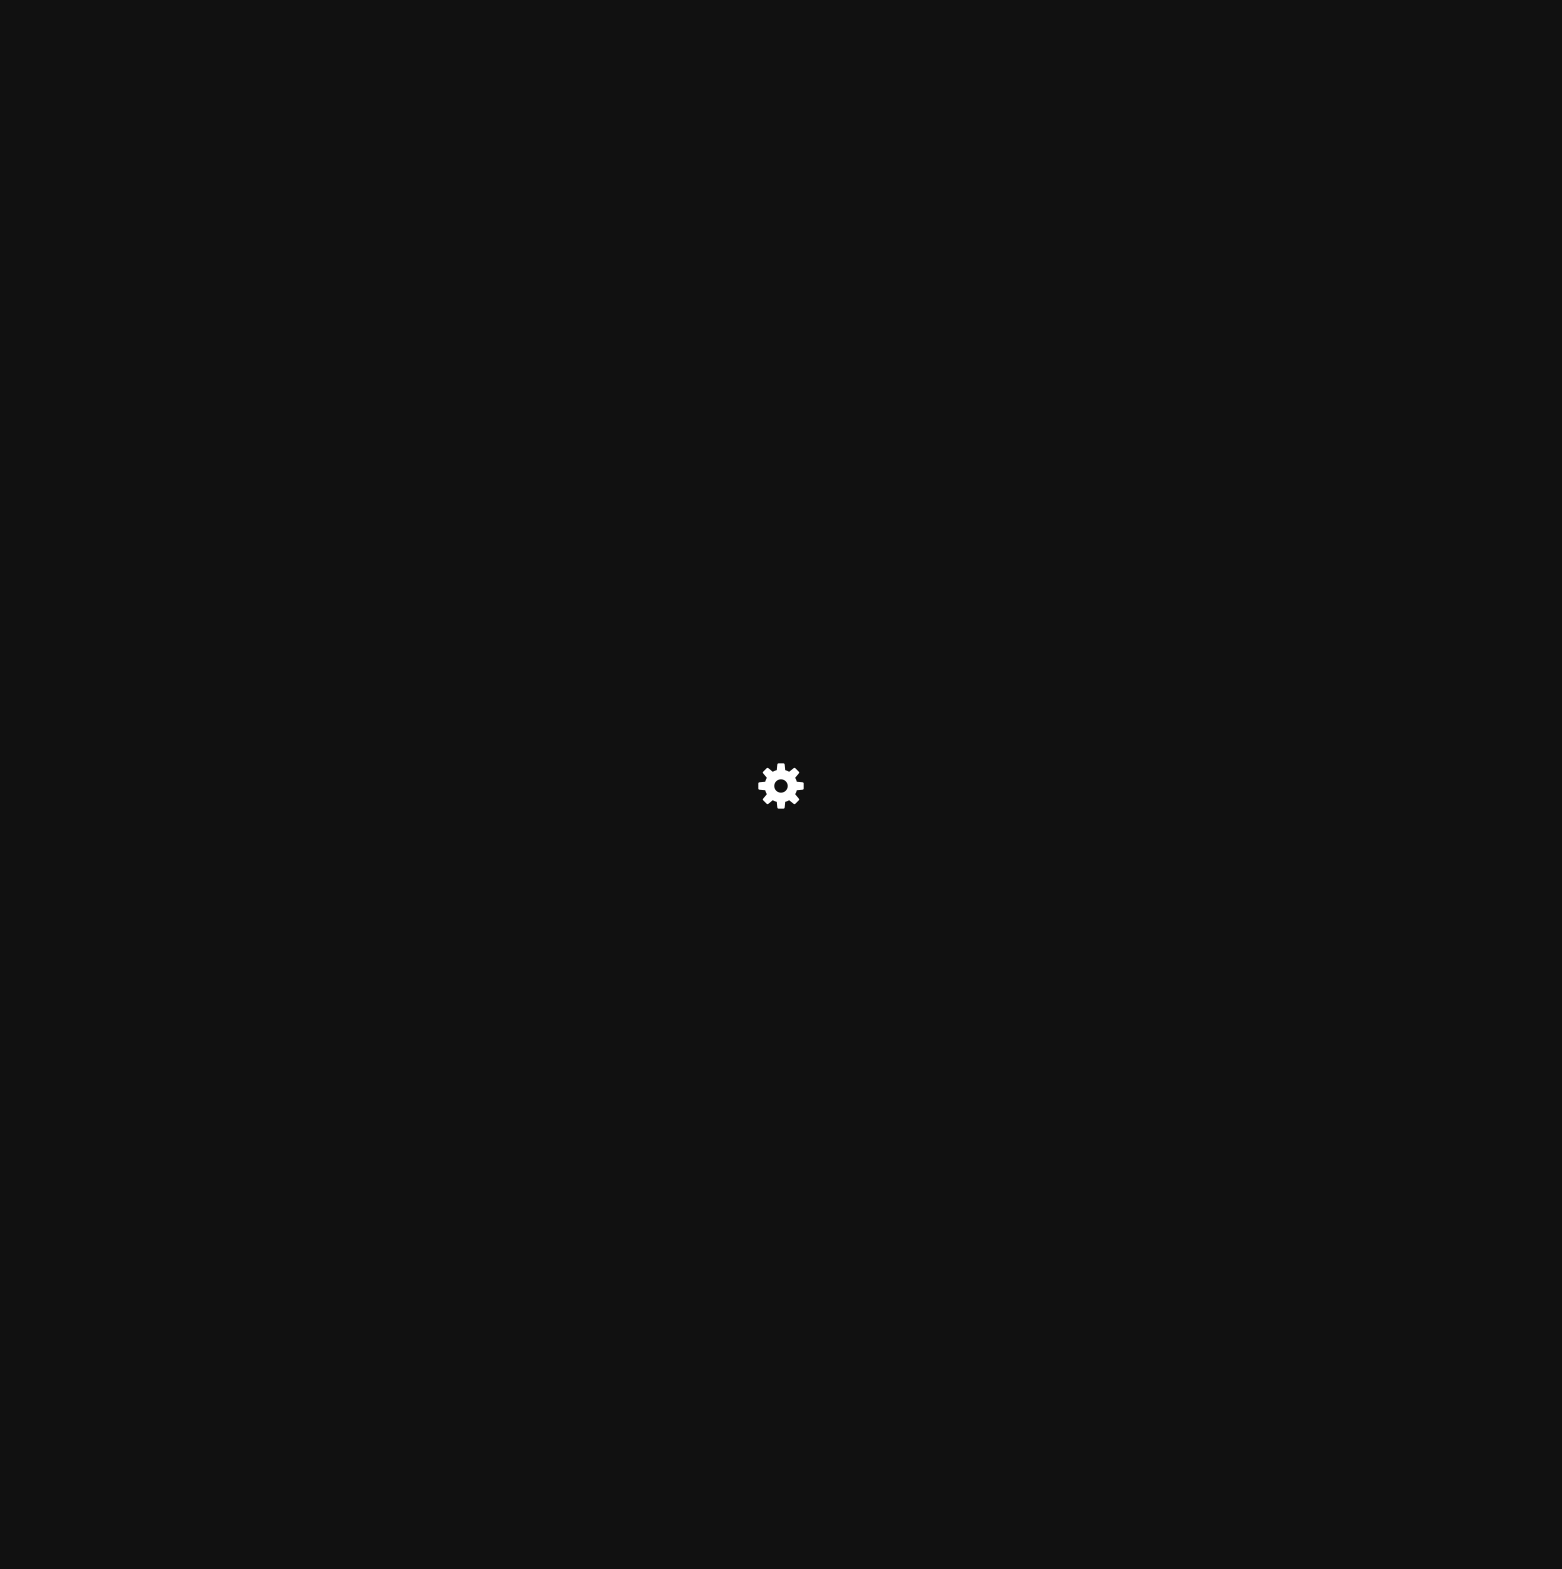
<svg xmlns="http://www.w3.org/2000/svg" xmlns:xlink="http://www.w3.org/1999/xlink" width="1562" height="1569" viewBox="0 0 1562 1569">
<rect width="100%" height="100%" fill="#111111"/>
<image xlink:href="image0.png" x="758" y="763" width="46" height="46"/>
</svg>
